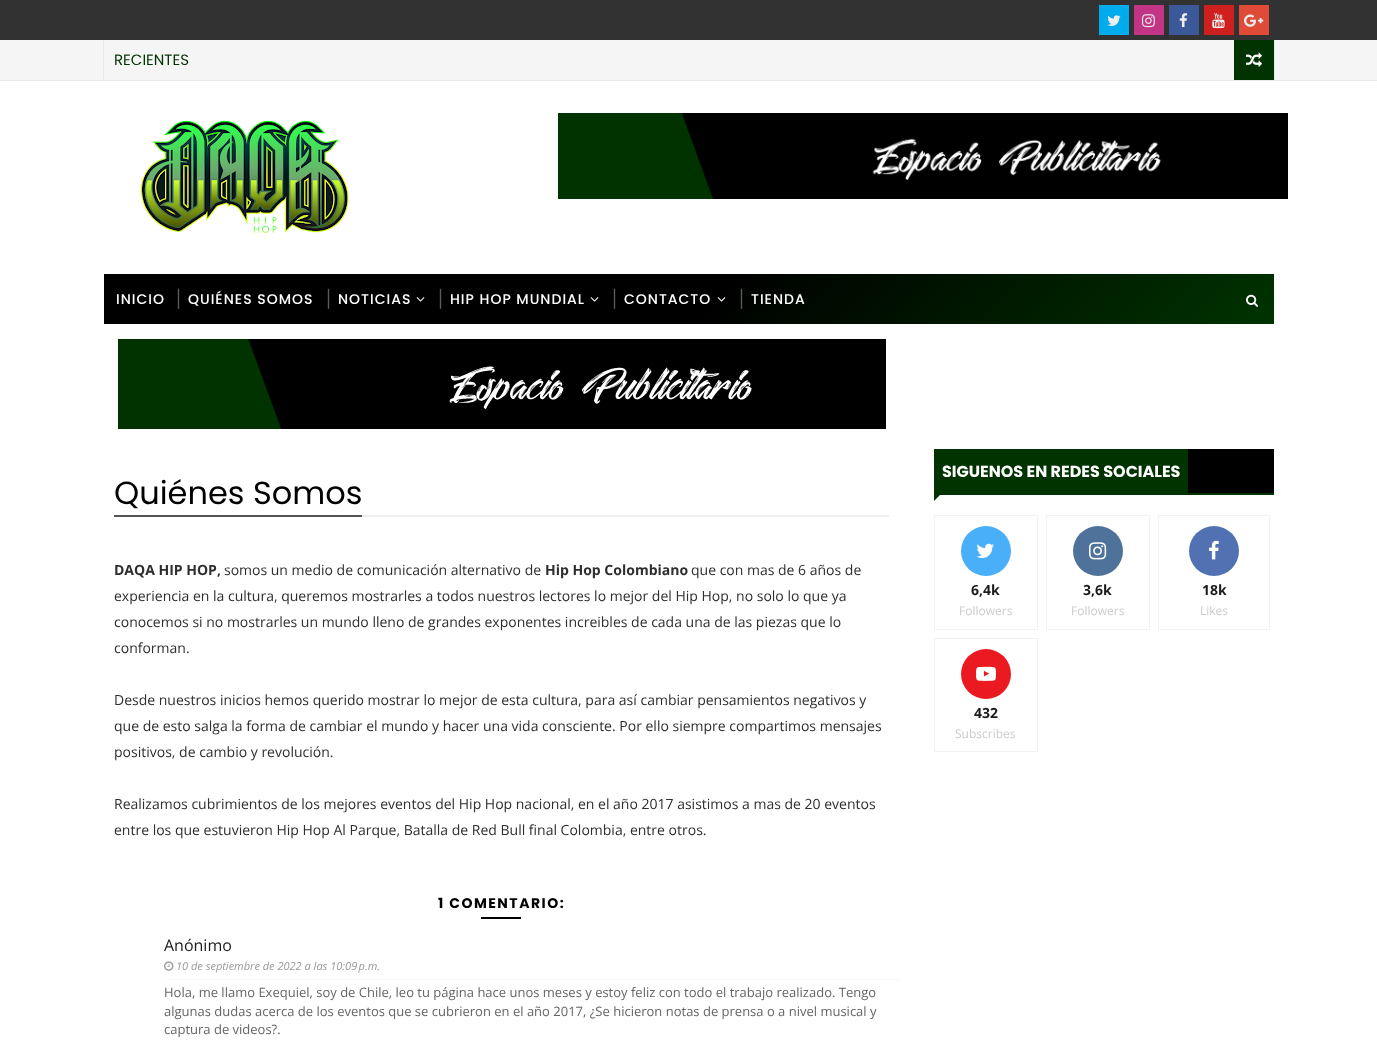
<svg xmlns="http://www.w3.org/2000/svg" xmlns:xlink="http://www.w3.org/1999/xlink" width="1377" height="1041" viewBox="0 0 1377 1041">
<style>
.cls-1{font:15px Poppins;fill:#003300}
.cls-2{font:500 14px Poppins;letter-spacing:1px;fill:#ffffff}
.cls-3{font:20px Open Sans;fill:#5c5c5c}
.cls-4{font:32px Poppins;fill:#000000}
.cls-5{font:bold 14px Open Sans;fill:#2e2e2e}
.cls-6{font:14px Open Sans;fill:#2e2e2e}
.cls-7{font:bold 14px Poppins;letter-spacing:1.5px;fill:#000000}
.cls-8{font:16px Open Sans;fill:#1c1c1c}
.cls-9{font:italic 11px Open Sans;fill:#999999}
.cls-10{font:13px Open Sans;fill:#656565}
.cls-11{font:bold 16px Poppins;fill:#ffffff}
.cls-12{font:bold 14px Open Sans;fill:#1c1c1c}
.cls-13{font:12px Open Sans;fill:#cbcbcb}
</style>
<defs>
<linearGradient id="g1" gradientUnits="userSpaceOnUse" x1="384" y1="-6" x2="994" y2="604"><stop offset="0.52" stop-color="#000000"/><stop offset="1" stop-color="#003300"/></linearGradient>
</defs>
<rect width="100%" height="100%" fill="#ffffff"/>
<rect fill="#333232" x="0" y="0" width="1377" height="40"/>
<rect fill="#00aced" x="1099" y="5" width="30" height="30"/>
<image xlink:href="image0.png" x="1107" y="15" width="14" height="11"/>
<rect fill="#c13584" x="1134" y="5" width="30" height="30"/>
<image xlink:href="image1.png" x="1142" y="14" width="13" height="14"/>
<rect fill="#3b5998" x="1169" y="5" width="30" height="30"/>
<image xlink:href="image2.png" x="1179" y="13" width="9" height="15"/>
<rect fill="#cd201f" x="1204" y="5" width="30" height="30"/>
<image xlink:href="image3.png" x="1212" y="13" width="13" height="16"/>
<rect fill="#df4b37" x="1239" y="5" width="30" height="30"/>
<image xlink:href="image4.png" x="1244" y="14" width="20" height="13"/>
<rect fill="#f5f5f5" x="0" y="40" width="1377" height="40"/>
<rect fill="#e9e9e9" x="0" y="80" width="1377" height="1"/>
<rect fill="#e9e9e9" x="1274" y="40" width="1" height="40"/>
<rect fill="#e9e9e9" x="103" y="40" width="1" height="40"/>
<rect fill="#003300" x="1234" y="40" width="40" height="40"/>
<image xlink:href="image5.png" x="1246" y="52" width="16" height="15"/>
<image xlink:href="image6.png" x="140" y="120" width="209" height="113"/>
<image xlink:href="image7.png" x="558" y="113" width="730" height="86"/>
<rect fill="url(#g1)" x="104" y="274" width="1170" height="50"/>
<image xlink:href="image8.png" x="416" y="297" width="9" height="5"/>
<image xlink:href="image8.png" x="590" y="297" width="9" height="5"/>
<image xlink:href="image9.png" x="717" y="297" width="9" height="5"/>
<image xlink:href="image10.png" x="1246" y="294" width="12" height="13"/>
<image xlink:href="image11.png" x="118" y="339" width="768" height="90"/>
<rect fill="#eeeeee" x="362" y="515" width="527" height="2"/>
<rect fill="#555555" x="114" y="515" width="248" height="2"/>
<rect fill="#000000" x="481" y="917" width="40" height="2"/>
<path fill="none" stroke="#f5f5f5" stroke-dasharray="1 1" d="M164 979.5H899"/>
<image xlink:href="image12.png" x="164" y="961" width="10" height="10"/>
<rect fill="#000000" x="1188" y="449" width="86" height="44"/>
<rect fill="#003300" x="1188" y="493" width="86" height="2"/>
<rect fill="#003300" x="934" y="449" width="254" height="46"/>
<path fill="#003300" d="M934 492H943L934 501Z"/>
<rect fill="none" stroke="#f2f2f2" x="934.5" y="515.5" width="103" height="114"/>
<circle fill="#49aff8" cx="986" cy="551" r="25"/>
<image xlink:href="image13.png" x="976" y="543" width="18" height="15"/>
<rect fill="none" stroke="#f2f2f2" x="1046.5" y="515.5" width="103" height="114"/>
<circle fill="#4e729a" cx="1098" cy="551" r="25"/>
<image xlink:href="image14.png" x="1089" y="542" width="18" height="18"/>
<rect fill="none" stroke="#f2f2f2" x="1158.5" y="515.5" width="111" height="114"/>
<circle fill="#5271b3" cx="1214" cy="551" r="25"/>
<image xlink:href="image15.png" x="1209" y="540" width="10" height="20"/>
<rect fill="none" stroke="#f2f2f2" x="934.5" y="638.5" width="103" height="113"/>
<circle fill="#eb1a21" cx="986" cy="674" r="25"/>
<image xlink:href="image16.png" x="976" y="666" width="20" height="15"/>
<text class="cls-1" x="114" y="65">RECIENTES</text>
<text class="cls-2" x="116" y="304">INICIO</text>
<text class="cls-3" x="173" y="304">|</text>
<text class="cls-2" x="188" y="304">QUIÉNES SOMOS</text>
<text class="cls-3" x="323" y="304">|</text>
<text class="cls-2" x="338" y="304">NOTICIAS</text>
<text class="cls-3" x="435" y="304">|</text>
<text class="cls-2" x="450" y="304">HIP HOP MUNDIAL</text>
<text class="cls-3" x="609" y="304">|</text>
<text class="cls-2" x="624" y="304">CONTACTO</text>
<text class="cls-3" x="736" y="304">|</text>
<text class="cls-2" x="751" y="304">TIENDA</text>
<text class="cls-4" x="114" y="504">Quiénes Somos</text>
<text class="cls-5" x="114" y="575">DAQA HIP HOP,</text>
<text class="cls-6" x="224" y="575">somos un medio de comunicación alternativo de</text>
<text class="cls-5" x="545" y="575">Hip Hop Colombiano</text>
<text class="cls-6" x="691" y="575">que con mas de 6 años de</text>
<text class="cls-6"><tspan x="114" y="601">experiencia en la cultura, queremos mostrarles a todos nuestros lectores lo mejor del Hip Hop, no solo lo que ya</tspan><tspan x="114" y="627">conocemos si no mostrarles un mundo lleno de grandes exponentes increibles de cada una de las piezas que lo</tspan><tspan x="114" y="653">conforman.</tspan></text>
<text class="cls-6"><tspan x="114" y="705">Desde nuestros inicios hemos querido mostrar lo mejor de esta cultura, para así cambiar pensamientos negativos y</tspan><tspan x="114" y="731">que de esto salga la forma de cambiar el mundo y hacer una vida consciente. Por ello siempre compartimos mensajes</tspan><tspan x="114" y="757">positivos, de cambio y revolución.</tspan></text>
<text class="cls-6"><tspan x="114" y="809">Realizamos cubrimientos de los mejores eventos del Hip Hop nacional, en el año 2017 asistimos a mas de 20 eventos</tspan><tspan x="114" y="835">entre los que estuvieron Hip Hop Al Parque, Batalla de Red Bull final Colombia, entre otros.</tspan></text>
<text class="cls-7" x="438" y="908">1 COMENTARIO:</text>
<text class="cls-8" x="164" y="951">Anónimo</text>
<text class="cls-9" x="176" y="970">10 de septiembre de 2022 a las 10:09 p.m.</text>
<text class="cls-10"><tspan x="164" y="997">Hola, me llamo Exequiel, soy de Chile, leo tu página hace unos meses y estoy feliz con todo el trabajo realizado. Tengo</tspan><tspan x="164" y="1016">algunas dudas acerca de los eventos que se cubrieron en el año 2017, ¿Se hicieron notas de prensa o a nivel musical y</tspan><tspan x="164" y="1034">captura de videos?.</tspan></text>
<text class="cls-11" x="942" y="477">SIGUENOS EN REDES SOCIALES</text>
<text class="cls-12" x="971" y="595">6,4k</text>
<text class="cls-13" x="959" y="615">Followers</text>
<text class="cls-12" x="1083" y="595">3,6k</text>
<text class="cls-13" x="1071" y="615">Followers</text>
<text class="cls-12" x="1202" y="595">18k</text>
<text class="cls-13" x="1200" y="615">Likes</text>
<text class="cls-12" x="974" y="718">432</text>
<text class="cls-13" x="955" y="738">Subscribes</text>
</svg>
